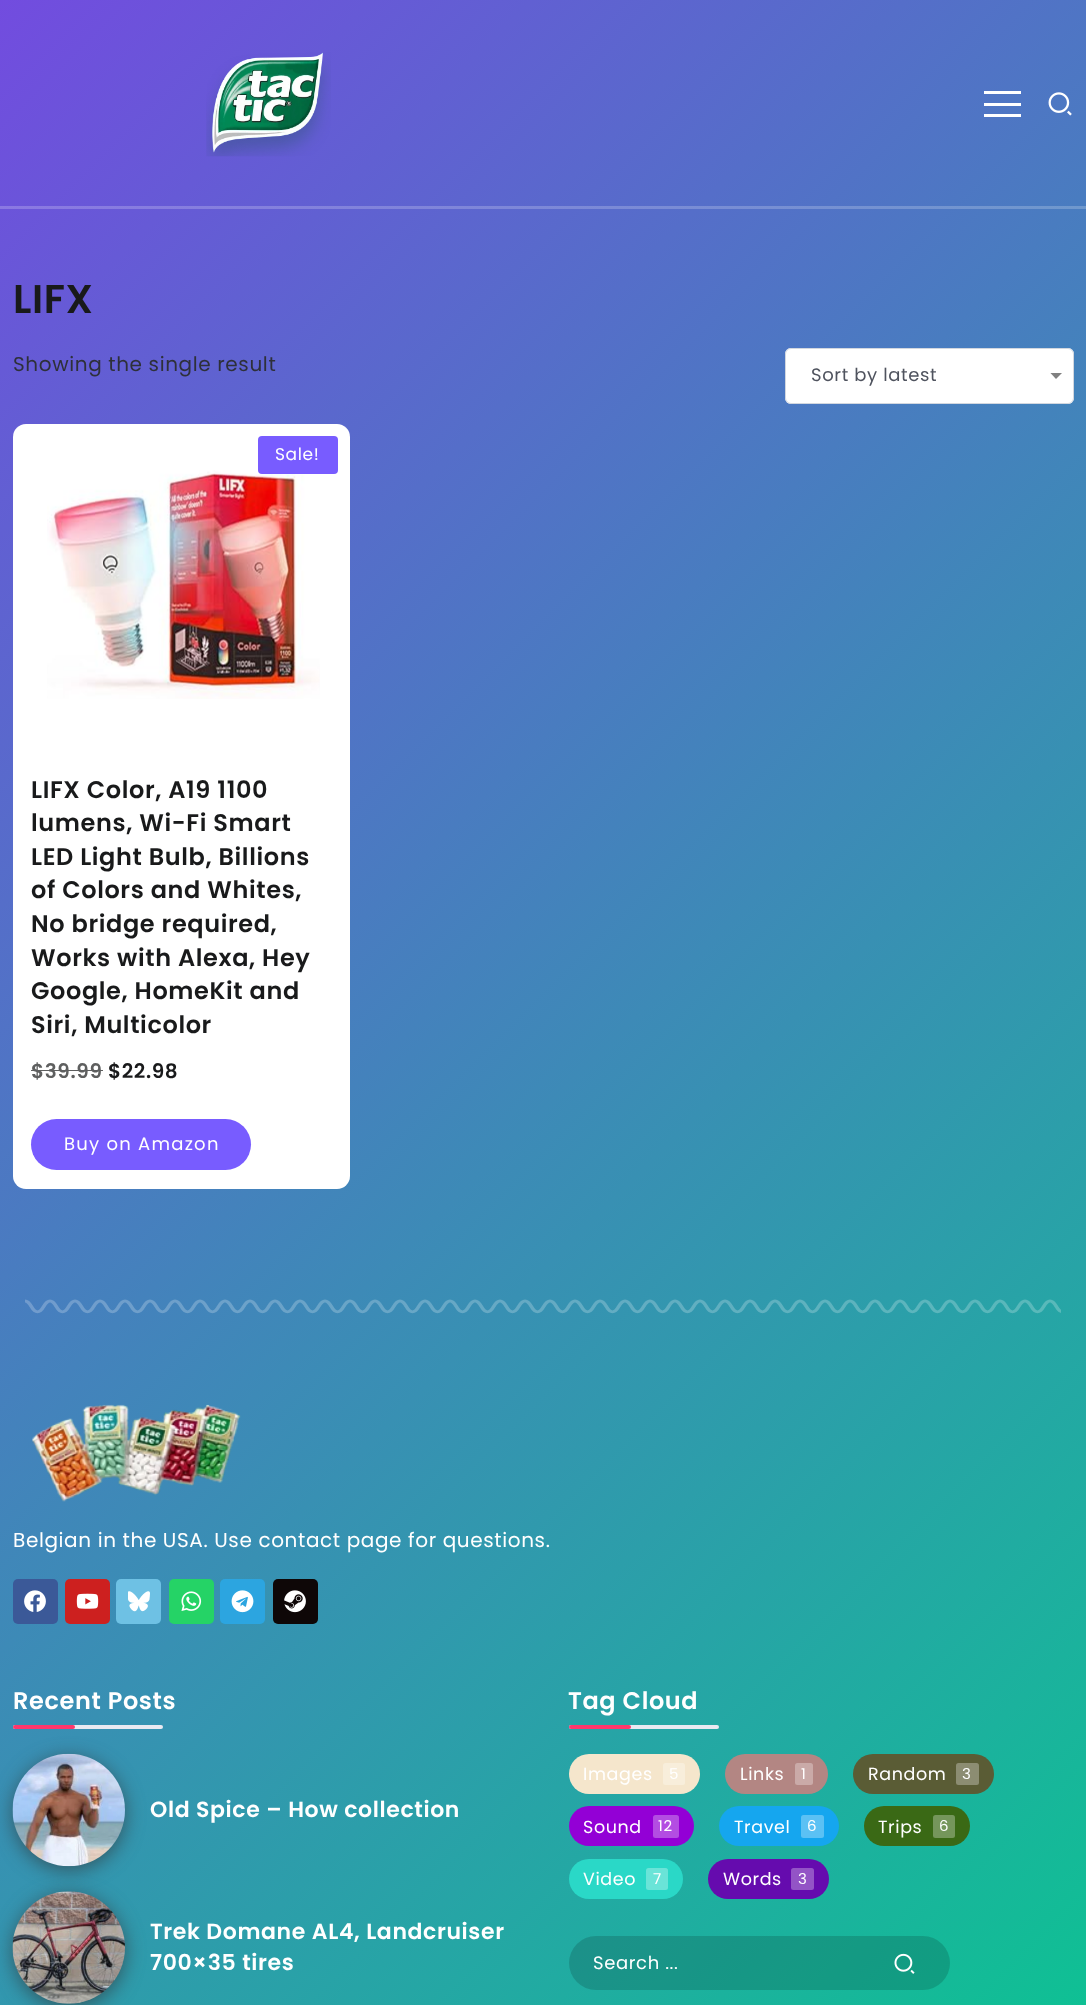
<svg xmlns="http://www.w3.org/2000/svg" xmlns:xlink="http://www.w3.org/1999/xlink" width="1086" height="2005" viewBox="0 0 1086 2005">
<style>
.cls-1{font:600 40px Poppins;letter-spacing:0.62px;fill:#191a1b}
.cls-2{font:20px Poppins;letter-spacing:0.62px;fill:#2e3039}
.cls-3{font:18px Poppins;letter-spacing:0.62px;fill:#4f535e}
.cls-4{font:17px Poppins;letter-spacing:0.62px;fill:#ffffff}
.cls-5{font:600 24px Poppins;letter-spacing:0.62px;fill:#191a1b}
.cls-6{font:600 20px Poppins;letter-spacing:0.62px;fill:#5e5f5f}
.cls-7{font:600 20px Poppins;letter-spacing:0.62px;fill:#191a1b}
.cls-8{font:18px Poppins;letter-spacing:1.25px;fill:#ffffff}
.cls-9{font:20px Poppins;letter-spacing:0.62px;fill:#ffffff}
.cls-10{font:600 24px Poppins;letter-spacing:0.62px;fill:#ffffff}
.cls-11{font:600 22px Poppins;letter-spacing:0.62px;fill:#ffffff}
.cls-12{font:17.5px Poppins;letter-spacing:0.62px;fill:#ffffff}
.cls-13{font:15px Poppins;letter-spacing:0.62px;fill:#ffffff}
.cls-14{font:18px Poppins;letter-spacing:0.62px;fill:#ffffff}
</style>
<defs>
<linearGradient id="g1" gradientUnits="userSpaceOnUse" x1="-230" y1="230" x2="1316" y2="1775"><stop offset="0" stop-color="#724cdf"/><stop offset="1" stop-color="#0fc094"/></linearGradient>
<linearGradient id="g2" gradientUnits="userSpaceOnUse" x1="-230" y1="230" x2="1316" y2="1775"><stop offset="0" stop-color="#9072e6"/><stop offset="1" stop-color="#41cdaa"/></linearGradient>
<clipPath id="clip1"><rect x="1050" y="373" width="13" height="12"/></clipPath>
</defs>
<rect width="100%" height="100%" fill="#ffffff"/>
<rect fill="url(#g1)" x="0" y="0" width="1086" height="2005"/>
<rect fill="url(#g2)" x="0" y="206" width="1086" height="3"/>
<image xlink:href="image0.png" x="206" y="52" width="125" height="105"/>
<rect fill="#ffffff" x="984" y="91" width="37" height="3"/>
<rect fill="#ffffff" x="984" y="103" width="37" height="3"/>
<rect fill="#ffffff" x="984" y="114" width="37" height="3"/>
<image xlink:href="image1.png" x="1048" y="92" width="24" height="24"/>
<rect fill="#ffffff" x="785" y="348" width="289" height="56" rx="6"/>
<g clip-path="url(#clip1)">
<path fill="#808080" d="M1050 372.5H1062.5L1056 379Z"/>
</g>
<rect fill="none" stroke="#d2d7df" x="785.5" y="348.5" width="288" height="55" rx="5.5"/>
<rect fill="#ffffff" x="13" y="424" width="337" height="765" rx="13"/>
<image xlink:href="image2.png" x="47" y="470" width="273" height="229"/>
<rect fill="#785cff" x="258" y="436" width="80" height="38" rx="4"/>
<rect fill="#5e5f5f" x="31" y="1070" width="72" height="1"/>
<rect fill="#785cff" x="31" y="1119" width="220" height="51" rx="25.5"/>
<image xlink:href="image3.png" x="25" y="1299" width="1036" height="15"/>
<image xlink:href="image4.png" x="32" y="1404" width="209" height="98"/>
<rect fill="#3b5998" x="13" y="1579" width="45" height="45" rx="5"/>
<image xlink:href="image5.png" x="24" y="1590" width="22" height="22"/>
<rect fill="#cd201f" x="65" y="1579" width="45" height="45" rx="5"/>
<image xlink:href="image6.png" x="76" y="1593" width="23" height="16"/>
<rect fill="#6ec1e4" x="116" y="1579" width="45" height="45" rx="5"/>
<image xlink:href="image7.png" x="128" y="1591" width="22" height="21"/>
<rect fill="#25d366" x="169" y="1579" width="45" height="45" rx="5"/>
<image xlink:href="image8.png" x="181" y="1591" width="21" height="20"/>
<rect fill="#2ca5e0" x="220" y="1579" width="45" height="45" rx="5"/>
<image xlink:href="image9.png" x="231" y="1590" width="23" height="23"/>
<rect fill="#0e0707" x="273" y="1579" width="45" height="45" rx="5"/>
<image xlink:href="image10.png" x="284" y="1590" width="22" height="23"/>
<rect fill="#e9e9f1" x="13" y="1725" width="150" height="4" rx="2"/>
<rect fill="#ff376c" x="13" y="1725" width="62" height="4" rx="2"/>
<rect fill="#323c41" fill-opacity="0.71" filter="blur(9.5px)" x="13" y="1758" width="112" height="112" rx="56"/>
<image xlink:href="image11.png" x="12" y="1753" width="113" height="114"/>
<rect fill="#323c41" fill-opacity="0.71" filter="blur(9.5px)" x="13" y="1895" width="112" height="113" rx="56"/>
<image xlink:href="image12.png" x="12" y="1891" width="113" height="113"/>
<rect fill="#e9e9f1" x="569" y="1725" width="150" height="4" rx="2"/>
<rect fill="#ff376c" x="569" y="1725" width="62" height="4" rx="2"/>
<rect fill="#f5e6cc" x="569" y="1754" width="131" height="40" rx="20"/>
<rect fill="#f8eedb" x="663" y="1763" width="22" height="22" rx="2.5"/>
<rect fill="#b38683" x="725" y="1754" width="103" height="40" rx="20"/>
<rect fill="#caaaa8" x="795" y="1763" width="18" height="22" rx="2.5"/>
<rect fill="#5a5c35" x="853" y="1754" width="141" height="40" rx="20"/>
<rect fill="#8c8d72" x="956" y="1763" width="23" height="22" rx="2.5"/>
<rect fill="#9300d6" x="569" y="1806" width="125" height="40" rx="20"/>
<rect fill="#b34de2" x="653" y="1815" width="26" height="23" rx="2.5"/>
<rect fill="#15a6ef" x="719" y="1806" width="120" height="40" rx="20"/>
<rect fill="#5bc1f4" x="801" y="1815" width="23" height="23" rx="2.5"/>
<rect fill="#3a6915" x="864" y="1806" width="106" height="40" rx="20"/>
<rect fill="#75965b" x="933" y="1815" width="22" height="23" rx="2.5"/>
<rect fill="#2ad8c7" x="569" y="1859" width="114" height="40" rx="20"/>
<rect fill="#6ae4d8" x="646" y="1868" width="22" height="22" rx="2.5"/>
<rect fill="#650bae" x="708" y="1859" width="121" height="40" rx="20"/>
<rect fill="#9354c6" x="791" y="1868" width="23" height="22" rx="2.5"/>
<rect fill="#000000" fill-opacity="0.15" x="569" y="1936" width="381" height="54" rx="27"/>
<image xlink:href="image13.png" x="894" y="1953" width="21" height="21"/>
<text class="cls-1" x="13" y="313">LIFX</text>
<text class="cls-2" x="13" y="371">Showing the single result</text>
<text class="cls-3" x="811" y="381">Sort by latest</text>
<text class="cls-4" x="275" y="460">Sale!</text>
<text class="cls-5"><tspan x="31" y="798">LIFX Color, A19 1100</tspan><tspan x="31" y="831">lumens, Wi-Fi Smart</tspan><tspan x="31" y="865">LED Light Bulb, Billions</tspan><tspan x="31" y="898">of Colors and Whites,</tspan><tspan x="31" y="932">No bridge required,</tspan><tspan x="31" y="966">Works with Alexa, Hey</tspan><tspan x="31" y="999">Google, HomeKit and</tspan><tspan x="31" y="1033">Siri, Multicolor</tspan></text>
<text class="cls-6" x="31" y="1078">$39.99</text>
<text class="cls-7" x="108" y="1078">$22.98</text>
<text class="cls-8" x="64" y="1150">Buy on Amazon</text>
<text class="cls-9" x="13" y="1547">Belgian in the USA. Use contact page for questions.</text>
<text class="cls-10" x="13" y="1709">Recent Posts</text>
<text class="cls-11" x="150" y="1817">Old Spice – How collection</text>
<text class="cls-11"><tspan x="150" y="1939">Trek Domane AL4, Landcruiser</tspan><tspan x="150" y="1970">700×35 tires</tspan></text>
<text class="cls-10" x="568" y="1709">Tag Cloud</text>
<text class="cls-12" x="583" y="1780">Images</text>
<text class="cls-13" x="669" y="1779">5</text>
<text class="cls-12" x="740" y="1780">Links</text>
<text class="cls-13" x="801" y="1779">1</text>
<text class="cls-12" x="868" y="1780">Random</text>
<text class="cls-13" x="962" y="1779">3</text>
<text class="cls-12" x="583" y="1833">Sound</text>
<text class="cls-13" x="658" y="1831">12</text>
<text class="cls-12" x="734" y="1833">Travel</text>
<text class="cls-13" x="807" y="1831">6</text>
<text class="cls-12" x="878" y="1833">Trips</text>
<text class="cls-13" x="939" y="1831">6</text>
<text class="cls-12" x="583" y="1885">Video</text>
<text class="cls-13" x="653" y="1884">7</text>
<text class="cls-12" x="723" y="1885">Words</text>
<text class="cls-13" x="798" y="1884">3</text>
<text class="cls-14" x="593" y="1969">Search ...</text>
</svg>
